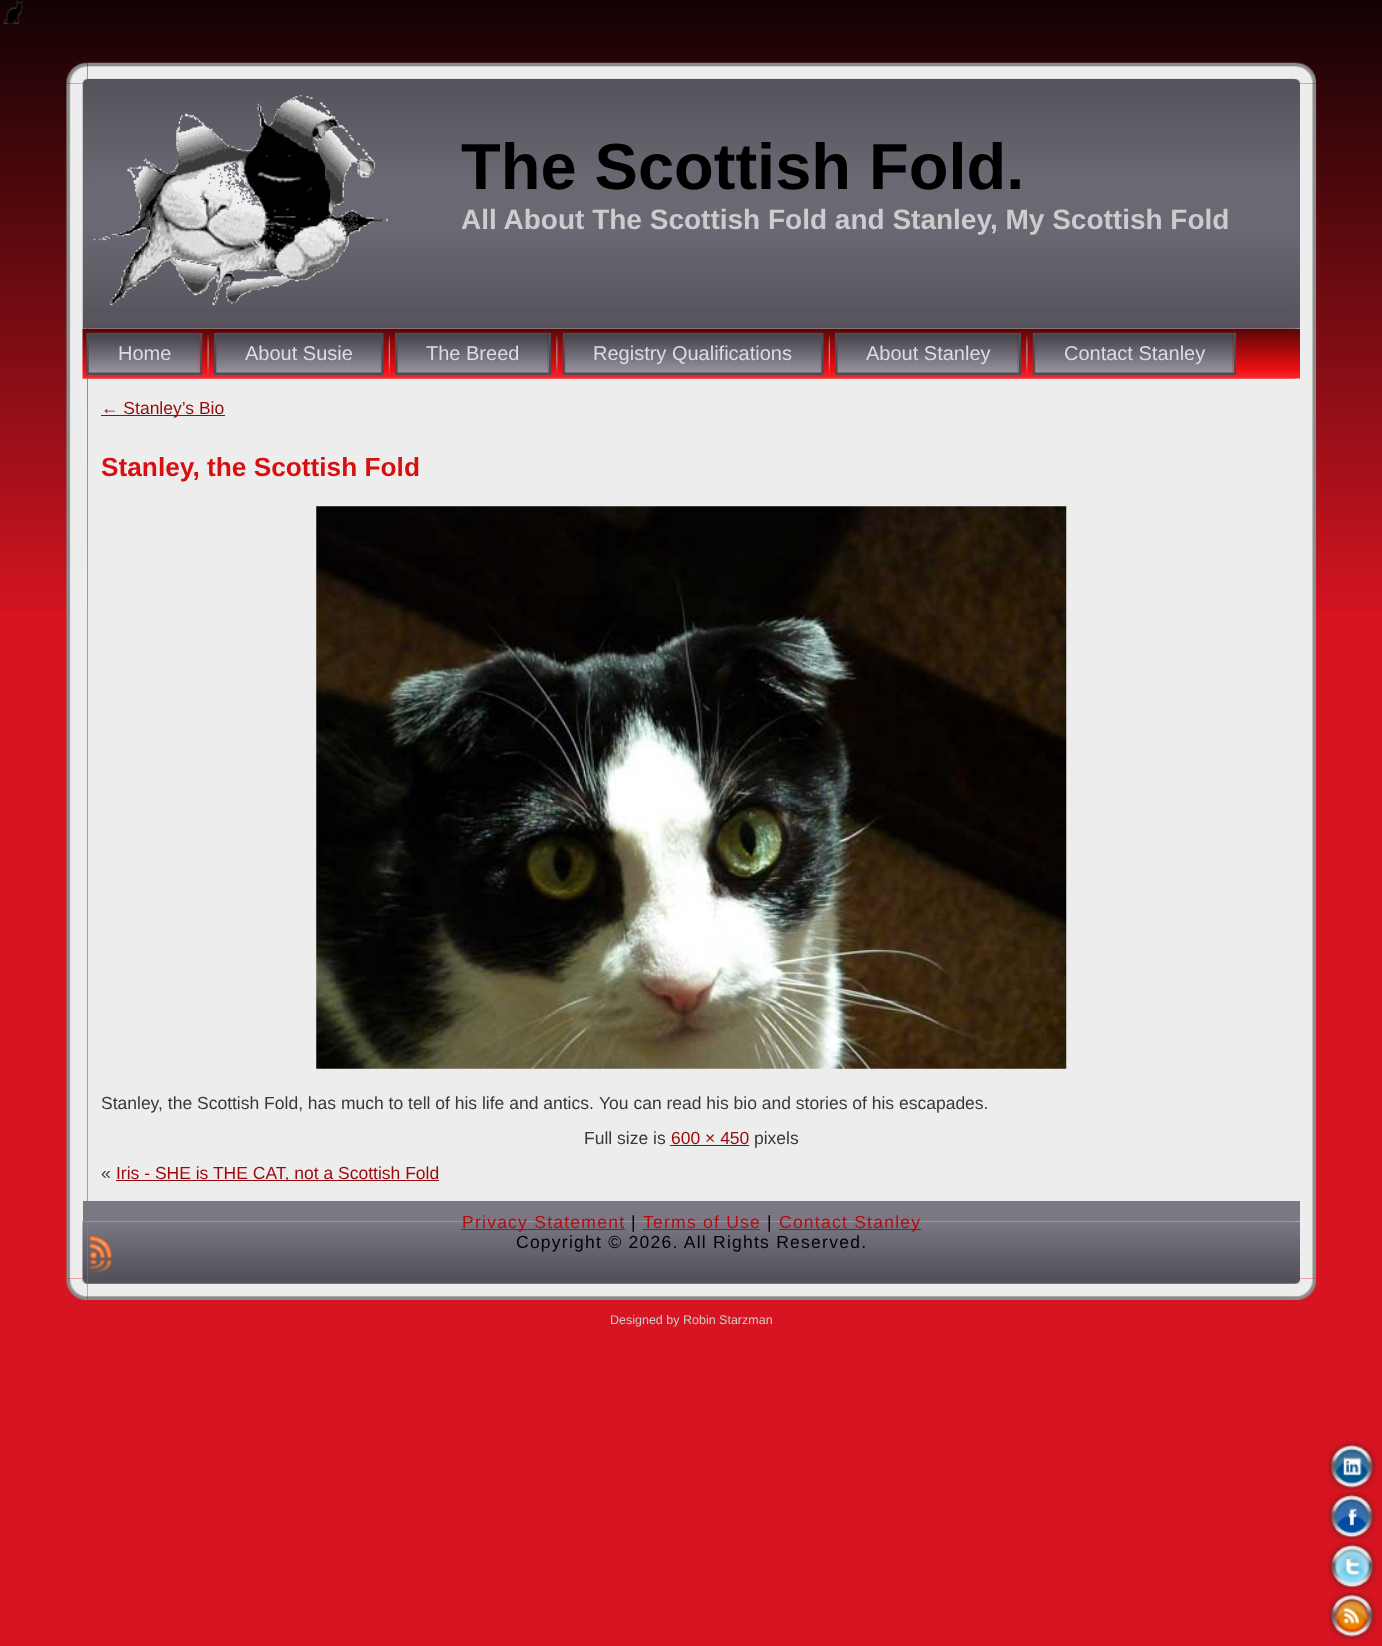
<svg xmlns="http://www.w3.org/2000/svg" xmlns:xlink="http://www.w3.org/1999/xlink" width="1382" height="1646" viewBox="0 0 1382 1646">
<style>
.cls-1{font:bold 65px Liberation Sans;fill:#000000}
.cls-2{font:bold 28px Liberation Sans;fill:#cccccc}
.cls-3{font:20px Liberation Sans;fill:#dddce0}
.cls-4{font:17.5px Liberation Sans;fill:#990a0c}
.cls-5{font:bold 26.25px Liberation Sans;fill:#d80e11}
.cls-6{font:17.5px Liberation Sans;fill:#383838}
.cls-7{font:17.5px Liberation Sans;letter-spacing:1.25px;fill:#b60c0e}
.cls-8{font:17.5px Liberation Sans;letter-spacing:1.25px;fill:#000000}
.cls-9{font:12.5px Liberation Sans;fill:#cccccc}
</style>
<rect width="100%" height="100%" fill="#d71421"/>
<image xlink:href="image0.png" x="0" y="0" width="1382" height="612"/>
<image xlink:href="image1.png" x="3" y="1" width="20" height="23"/>
<image xlink:href="image2.png" x="66" y="62" width="22" height="22"/>
<image xlink:href="image3.png" x="87" y="62" width="1208" height="19"/>
<image xlink:href="image4.png" x="1295" y="62" width="22" height="22"/>
<image xlink:href="image29.png" x="66" y="1278" width="22" height="22"/>
<image xlink:href="image30.png" x="87" y="1278" width="1208" height="22"/>
<image xlink:href="image5.png" x="66" y="84" width="22" height="1195"/>
<image xlink:href="image31.png" x="1295" y="1278" width="22" height="22"/>
<image xlink:href="image28.png" x="1295" y="84" width="22" height="1195"/>
<rect fill="#ededed" x="88" y="328" width="1207" height="894"/>
<image xlink:href="image6.png" x="82" y="78" width="1218" height="251"/>
<image xlink:href="image7.png" x="90" y="86" width="1203" height="235"/>
<image xlink:href="image8.png" x="93" y="94" width="295" height="212"/>
<image xlink:href="image9.png" x="82" y="328" width="1213" height="51"/>
<image xlink:href="image10.png" x="1295" y="328" width="5" height="51"/>
<image xlink:href="image11.png" x="86" y="332" width="113" height="43"/>
<image xlink:href="image12.png" x="198" y="332" width="5" height="43"/>
<image xlink:href="image13.png" x="207" y="334" width="2" height="41"/>
<image xlink:href="image14.png" x="213" y="332" width="167" height="43"/>
<image xlink:href="image15.png" x="380" y="332" width="4" height="43"/>
<image xlink:href="image16.png" x="388" y="334" width="2" height="41"/>
<image xlink:href="image17.png" x="395" y="332" width="153" height="43"/>
<image xlink:href="image18.png" x="547" y="332" width="5" height="43"/>
<image xlink:href="image19.png" x="556" y="334" width="2" height="41"/>
<image xlink:href="image20.png" x="562" y="332" width="258" height="43"/>
<image xlink:href="image15.png" x="820" y="332" width="4" height="43"/>
<image xlink:href="image16.png" x="828" y="334" width="2" height="41"/>
<image xlink:href="image21.png" x="835" y="332" width="183" height="43"/>
<image xlink:href="image18.png" x="1017" y="332" width="5" height="43"/>
<image xlink:href="image19.png" x="1026" y="334" width="2" height="41"/>
<image xlink:href="image22.png" x="1032" y="332" width="201" height="43"/>
<image xlink:href="image18.png" x="1232" y="332" width="5" height="43"/>
<rect fill="#990a0c" x="101" y="415" width="124" height="1"/>
<image xlink:href="image23.png" x="316" y="506" width="751" height="563"/>
<rect fill="#990a0c" x="670" y="1145" width="79" height="1"/>
<rect fill="#990a0c" x="116" y="1180" width="323" height="1"/>
<rect fill="#7b7783" x="83" y="1201" width="1217" height="20"/>
<image xlink:href="image24.png" x="82" y="1221" width="6" height="63"/>
<image xlink:href="image26.png" x="87" y="1221" width="1208" height="63"/>
<image xlink:href="image25.png" x="90" y="1235" width="22" height="39"/>
<rect fill="#b60c0e" x="461" y="1229" width="164" height="1"/>
<rect fill="#b60c0e" x="643" y="1229" width="117" height="1"/>
<rect fill="#b60c0e" x="779" y="1229" width="142" height="1"/>
<image xlink:href="image27.png" x="1295" y="1221" width="5" height="63"/>
<image xlink:href="image32.png" x="1327" y="1441" width="50" height="49"/>
<image xlink:href="image33.png" x="1327" y="1491" width="49" height="49"/>
<image xlink:href="image34.png" x="1327" y="1541" width="50" height="49"/>
<image xlink:href="image35.png" x="1327" y="1591" width="49" height="49"/>
<text class="cls-1" x="461" y="189">The Scottish Fold.</text>
<text class="cls-2" x="461" y="229">All About The Scottish Fold and Stanley, My Scottish Fold</text>
<text class="cls-3" x="118" y="360">Home</text>
<text class="cls-3" x="245" y="360">About Susie</text>
<text class="cls-3" x="426" y="360">The Breed</text>
<text class="cls-3" x="593" y="360">Registry Qualifications</text>
<text class="cls-3" x="866" y="360">About Stanley</text>
<text class="cls-3" x="1064" y="360">Contact Stanley</text>
<text class="cls-4" x="101" y="414">← Stanley’s Bio</text>
<text class="cls-5" x="101" y="476">Stanley, the Scottish Fold</text>
<text class="cls-6" x="101" y="1109">Stanley, the Scottish Fold, has much to tell of his life and antics.</text>
<text class="cls-6" x="599" y="1109">You can read his bio and stories of his escapades.</text>
<text class="cls-6" x="584" y="1144">Full size is</text>
<text class="cls-4" x="671" y="1144">600 × 450</text>
<text class="cls-6" x="754" y="1144">pixels</text>
<text class="cls-6" x="101" y="1179">«</text>
<text class="cls-4" x="116" y="1179">Iris - SHE is THE CAT, not a Scottish Fold</text>
<text class="cls-7" x="462" y="1228">Privacy Statement</text>
<text class="cls-8" x="631" y="1228">|</text>
<text class="cls-7" x="643" y="1228">Terms of Use</text>
<text class="cls-8" x="767" y="1228">|</text>
<text class="cls-7" x="779" y="1228">Contact Stanley</text>
<text class="cls-8" x="516" y="1248">Copyright © 2026. All Rights Reserved.</text>
<text class="cls-9" x="610" y="1324">Designed by Robin Starzman</text>
</svg>
